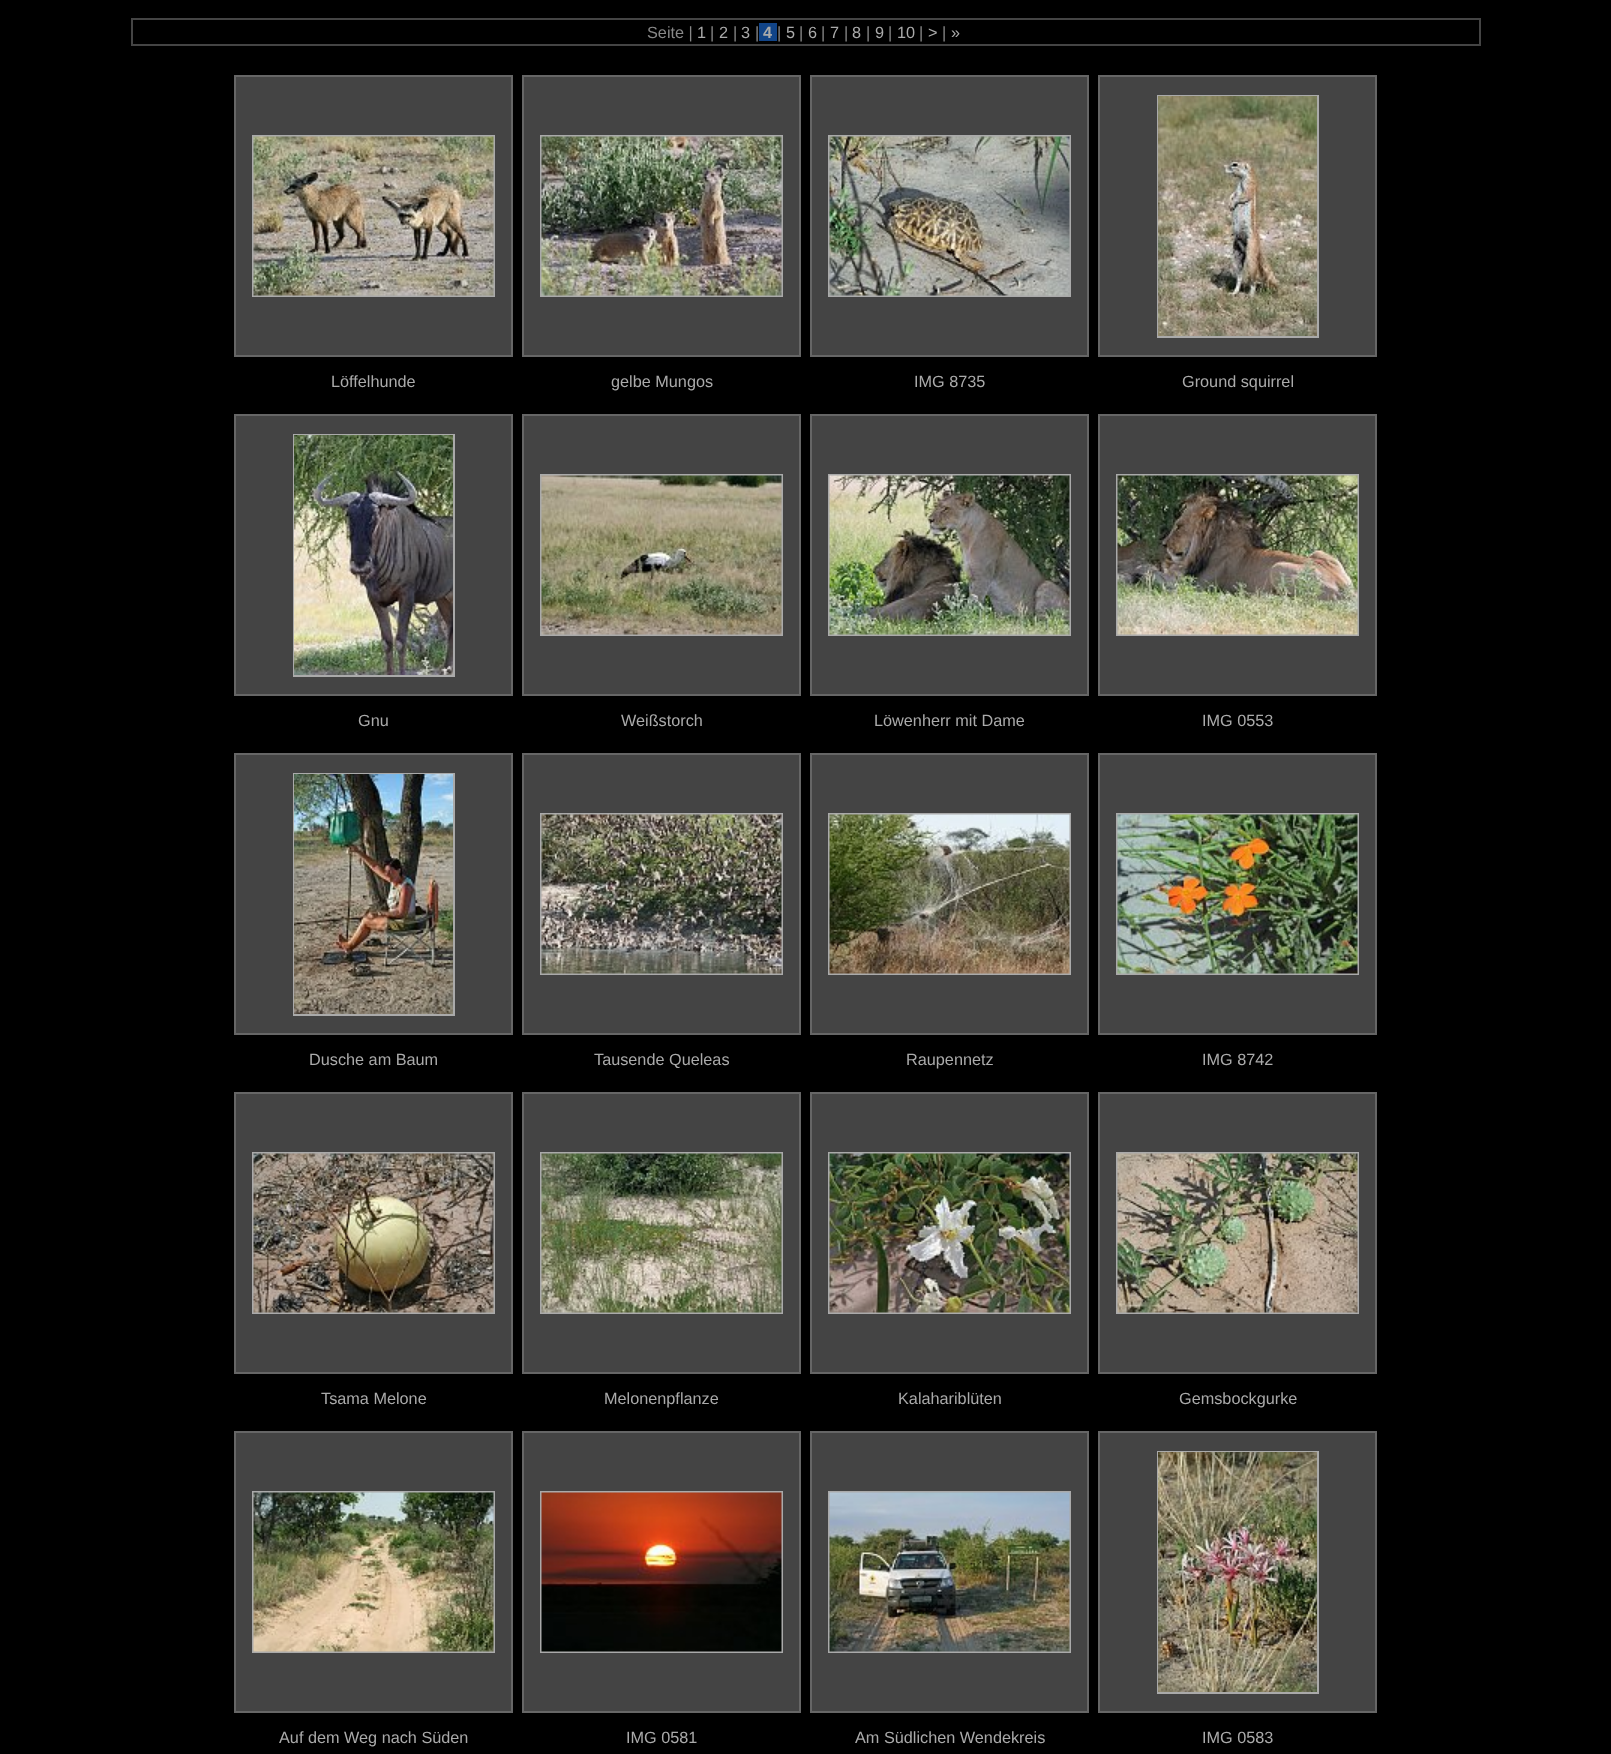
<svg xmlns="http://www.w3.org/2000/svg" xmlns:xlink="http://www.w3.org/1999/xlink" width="1611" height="1754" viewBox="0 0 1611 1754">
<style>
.cls-1{font:16.25px Liberation Sans;fill:#888888}
.cls-2{font:16.25px Liberation Sans;fill:#aaaaaa}
.cls-3{font:bold 16.25px Liberation Sans;fill:#aaaaaa}
</style>
<rect width="100%" height="100%" fill="#000000"/>
<rect fill="#444444" x="131" y="18" width="1350" height="2"/>
<rect fill="#444444" x="1479" y="18" width="2" height="27"/>
<rect fill="#444444" x="131" y="44" width="1350" height="2"/>
<rect fill="#444444" x="131" y="18" width="2" height="27"/>
<rect fill="#114488" x="759" y="23" width="18" height="18"/>
<rect fill="#444444" stroke="#666666" stroke-width="2" x="235" y="76" width="277" height="280"/>
<rect fill="none" stroke="#aaaaaa" stroke-width="2" x="253" y="136" width="241" height="160"/>
<image xlink:href="image0.png" x="253" y="136" width="241" height="160"/>
<rect fill="#444444" stroke="#666666" stroke-width="2" x="523" y="76" width="277" height="280"/>
<rect fill="none" stroke="#aaaaaa" stroke-width="2" x="541" y="136" width="241" height="160"/>
<image xlink:href="image1.png" x="541" y="136" width="241" height="160"/>
<rect fill="#444444" stroke="#666666" stroke-width="2" x="811" y="76" width="277" height="280"/>
<rect fill="none" stroke="#aaaaaa" stroke-width="2" x="829" y="136" width="241" height="160"/>
<image xlink:href="image2.png" x="829" y="136" width="241" height="160"/>
<rect fill="#444444" stroke="#666666" stroke-width="2" x="1099" y="76" width="277" height="280"/>
<rect fill="none" stroke="#aaaaaa" stroke-width="2" x="1158" y="96" width="160" height="241"/>
<image xlink:href="image3.png" x="1158" y="96" width="159" height="240"/>
<rect fill="#444444" stroke="#666666" stroke-width="2" x="235" y="415" width="277" height="280"/>
<rect fill="none" stroke="#aaaaaa" stroke-width="2" x="294" y="435" width="160" height="241"/>
<image xlink:href="image4.png" x="294" y="435" width="159" height="240"/>
<rect fill="#444444" stroke="#666666" stroke-width="2" x="523" y="415" width="277" height="280"/>
<rect fill="none" stroke="#aaaaaa" stroke-width="2" x="541" y="475" width="241" height="160"/>
<image xlink:href="image5.png" x="541" y="475" width="241" height="160"/>
<rect fill="#444444" stroke="#666666" stroke-width="2" x="811" y="415" width="277" height="280"/>
<rect fill="none" stroke="#aaaaaa" stroke-width="2" x="829" y="475" width="241" height="160"/>
<image xlink:href="image6.png" x="829" y="475" width="241" height="160"/>
<rect fill="#444444" stroke="#666666" stroke-width="2" x="1099" y="415" width="277" height="280"/>
<rect fill="none" stroke="#aaaaaa" stroke-width="2" x="1117" y="475" width="241" height="160"/>
<image xlink:href="image7.png" x="1117" y="475" width="241" height="160"/>
<rect fill="#444444" stroke="#666666" stroke-width="2" x="235" y="754" width="277" height="280"/>
<rect fill="none" stroke="#aaaaaa" stroke-width="2" x="294" y="774" width="160" height="241"/>
<image xlink:href="image8.png" x="294" y="774" width="159" height="240"/>
<rect fill="#444444" stroke="#666666" stroke-width="2" x="523" y="754" width="277" height="280"/>
<rect fill="none" stroke="#aaaaaa" stroke-width="2" x="541" y="814" width="241" height="160"/>
<image xlink:href="image9.png" x="541" y="814" width="241" height="160"/>
<rect fill="#444444" stroke="#666666" stroke-width="2" x="811" y="754" width="277" height="280"/>
<rect fill="none" stroke="#aaaaaa" stroke-width="2" x="829" y="814" width="241" height="160"/>
<image xlink:href="image10.png" x="829" y="814" width="241" height="160"/>
<rect fill="#444444" stroke="#666666" stroke-width="2" x="1099" y="754" width="277" height="280"/>
<rect fill="none" stroke="#aaaaaa" stroke-width="2" x="1117" y="814" width="241" height="160"/>
<image xlink:href="image11.png" x="1117" y="814" width="241" height="160"/>
<rect fill="#444444" stroke="#666666" stroke-width="2" x="235" y="1093" width="277" height="280"/>
<rect fill="none" stroke="#aaaaaa" stroke-width="2" x="253" y="1153" width="241" height="160"/>
<image xlink:href="image12.png" x="253" y="1153" width="241" height="160"/>
<rect fill="#444444" stroke="#666666" stroke-width="2" x="523" y="1093" width="277" height="280"/>
<rect fill="none" stroke="#aaaaaa" stroke-width="2" x="541" y="1153" width="241" height="160"/>
<image xlink:href="image13.png" x="541" y="1153" width="241" height="160"/>
<rect fill="#444444" stroke="#666666" stroke-width="2" x="811" y="1093" width="277" height="280"/>
<rect fill="none" stroke="#aaaaaa" stroke-width="2" x="829" y="1153" width="241" height="160"/>
<image xlink:href="image14.png" x="829" y="1153" width="241" height="160"/>
<rect fill="#444444" stroke="#666666" stroke-width="2" x="1099" y="1093" width="277" height="280"/>
<rect fill="none" stroke="#aaaaaa" stroke-width="2" x="1117" y="1153" width="241" height="160"/>
<image xlink:href="image15.png" x="1117" y="1153" width="241" height="160"/>
<rect fill="#444444" stroke="#666666" stroke-width="2" x="235" y="1432" width="277" height="280"/>
<rect fill="none" stroke="#aaaaaa" stroke-width="2" x="253" y="1492" width="241" height="160"/>
<image xlink:href="image16.png" x="253" y="1492" width="241" height="160"/>
<rect fill="#444444" stroke="#666666" stroke-width="2" x="523" y="1432" width="277" height="280"/>
<rect fill="none" stroke="#aaaaaa" stroke-width="2" x="541" y="1492" width="241" height="160"/>
<image xlink:href="image17.png" x="541" y="1492" width="241" height="160"/>
<rect fill="#444444" stroke="#666666" stroke-width="2" x="811" y="1432" width="277" height="280"/>
<rect fill="none" stroke="#aaaaaa" stroke-width="2" x="829" y="1492" width="241" height="160"/>
<image xlink:href="image18.png" x="829" y="1492" width="241" height="160"/>
<rect fill="#444444" stroke="#666666" stroke-width="2" x="1099" y="1432" width="277" height="280"/>
<rect fill="none" stroke="#aaaaaa" stroke-width="2" x="1158" y="1452" width="160" height="241"/>
<image xlink:href="image19.png" x="1158" y="1452" width="159" height="240"/>
<text class="cls-1" x="647" y="38">Seite |</text>
<text class="cls-2" x="697" y="38">1</text>
<text class="cls-1" x="710" y="38">|</text>
<text class="cls-2" x="719" y="38">2</text>
<text class="cls-1" x="733" y="38">|</text>
<text class="cls-2" x="741" y="38">3</text>
<text class="cls-1" x="755" y="38">|</text>
<text class="cls-3" x="763" y="38">4</text>
<text class="cls-1" x="777" y="38">|</text>
<text class="cls-2" x="786" y="38">5</text>
<text class="cls-1" x="799" y="38">|</text>
<text class="cls-2" x="808" y="38">6</text>
<text class="cls-1" x="821" y="38">|</text>
<text class="cls-2" x="830" y="38">7</text>
<text class="cls-1" x="844" y="38">|</text>
<text class="cls-2" x="852" y="38">8</text>
<text class="cls-1" x="866" y="38">|</text>
<text class="cls-2" x="875" y="38">9</text>
<text class="cls-1" x="888" y="38">|</text>
<text class="cls-2" x="897" y="38">10</text>
<text class="cls-1" x="919" y="38">|</text>
<text class="cls-2" x="928" y="38">&gt;</text>
<text class="cls-1" x="942" y="38">|</text>
<text class="cls-2" x="951" y="38">»</text>
<text class="cls-2" x="331" y="387">Löffelhunde</text>
<text class="cls-2" x="611" y="387">gelbe Mungos</text>
<text class="cls-2" x="914" y="387">IMG 8735</text>
<text class="cls-2" x="1182" y="387">Ground squirrel</text>
<text class="cls-2" x="358" y="726">Gnu</text>
<text class="cls-2" x="621" y="726">Weißstorch</text>
<text class="cls-2" x="874" y="726">Löwenherr mit Dame</text>
<text class="cls-2" x="1202" y="726">IMG 0553</text>
<text class="cls-2" x="309" y="1065">Dusche am Baum</text>
<text class="cls-2" x="594" y="1065">Tausende Queleas</text>
<text class="cls-2" x="906" y="1065">Raupennetz</text>
<text class="cls-2" x="1202" y="1065">IMG 8742</text>
<text class="cls-2" x="321" y="1404">Tsama Melone</text>
<text class="cls-2" x="604" y="1404">Melonenpflanze</text>
<text class="cls-2" x="898" y="1404">Kalahariblüten</text>
<text class="cls-2" x="1179" y="1404">Gemsbockgurke</text>
<text class="cls-2" x="279" y="1743">Auf dem Weg nach Süden</text>
<text class="cls-2" x="626" y="1743">IMG 0581</text>
<text class="cls-2" x="855" y="1743">Am Südlichen Wendekreis</text>
<text class="cls-2" x="1202" y="1743">IMG 0583</text>
</svg>
